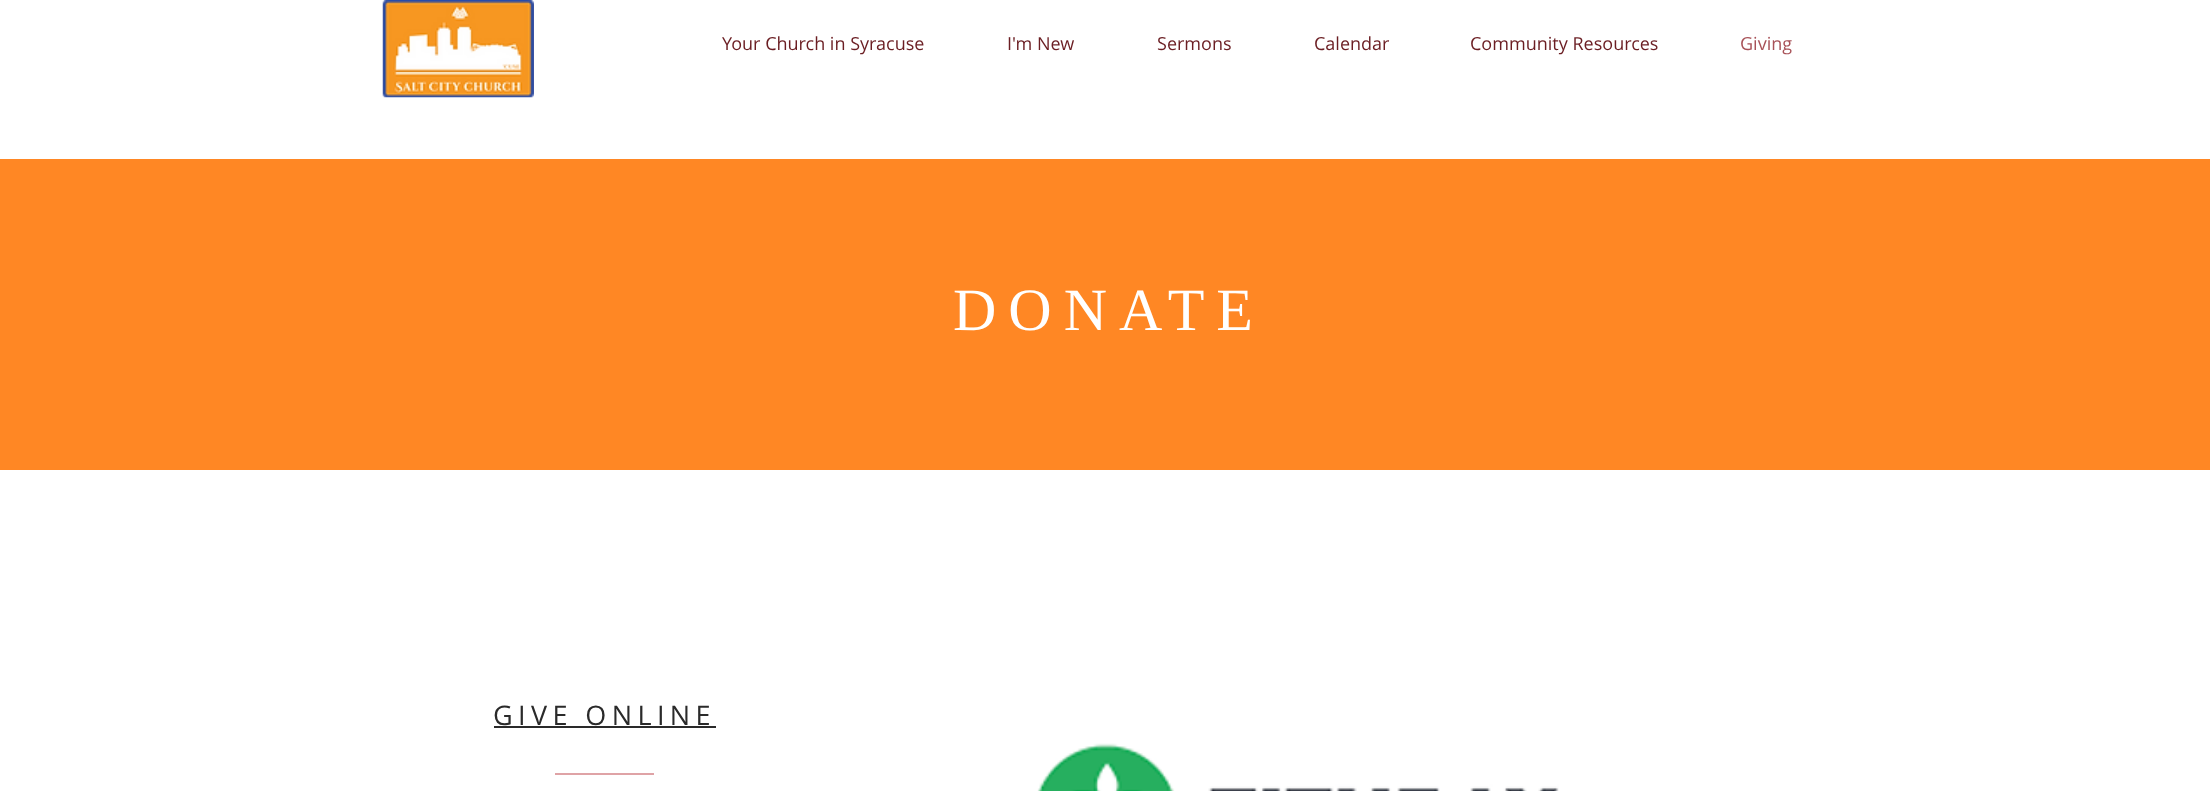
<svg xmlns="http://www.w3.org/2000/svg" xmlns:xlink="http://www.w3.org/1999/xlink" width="2210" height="791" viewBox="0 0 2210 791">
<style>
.cls-1{font:18px Open Sans;fill:#6b1e23}
.cls-2{font:18px Open Sans;fill:#a85258}
.cls-3{font:60px Liberation Serif;letter-spacing:12px;fill:#ffffff}
.cls-4{font:27px Open Sans;letter-spacing:5.4px;fill:#2a2a2a}
</style>
<rect width="100%" height="100%" fill="#ffffff"/>
<image xlink:href="image0.png" x="382" y="0" width="152" height="98"/>
<rect fill="#ff8724" x="0" y="159" width="2210" height="311"/>
<rect fill="#2a2a2a" x="494" y="726" width="222" height="2"/>
<rect fill="#dfa3a6" x="555" y="773" width="99" height="2"/>
<image xlink:href="image1.png" x="1037" y="743" width="522" height="48"/>
<text class="cls-1" x="722" y="50">Your Church in Syracuse</text>
<text class="cls-1" x="1007" y="50">I'm New</text>
<text class="cls-1" x="1157" y="50">Sermons</text>
<text class="cls-1" x="1314" y="50">Calendar</text>
<text class="cls-1" x="1470" y="50">Community Resources</text>
<text class="cls-2" x="1740" y="50">Giving</text>
<text class="cls-3" x="953" y="330">DONATE</text>
<text class="cls-4" x="493" y="725">GIVE ONLINE</text>
</svg>
